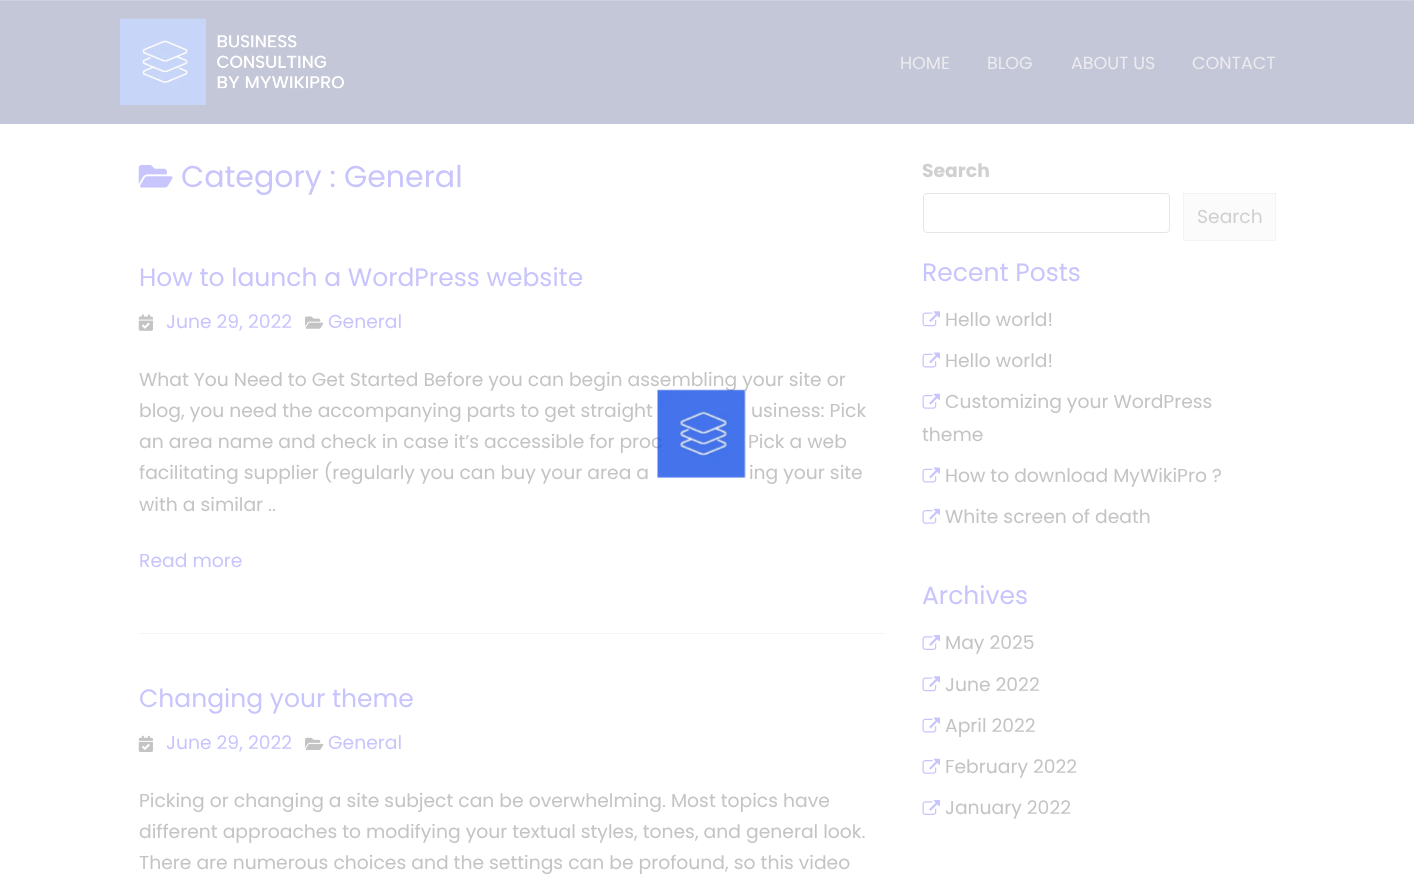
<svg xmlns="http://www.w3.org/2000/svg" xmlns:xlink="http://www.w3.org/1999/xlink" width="1414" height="878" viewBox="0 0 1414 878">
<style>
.cls-1{font:17.5px Poppins;fill:#ebebf0}
.cls-2{font:30px Poppins;fill:#c8c5fd}
.cls-3{font:25px Poppins;fill:#c8c5fd}
.cls-4{font:18.75px Poppins;fill:#c8c5fd}
.cls-5{font:18.75px Poppins;fill:#c4c4c4}
.cls-6{font:bold 18.75px Poppins;fill:#d0d0d0}
.cls-7{font:18.75px Poppins;fill:#d0d0d0}
</style>
<rect width="100%" height="100%" fill="#ffffff"/>
<rect fill="#c4c7d7" x="0" y="1" width="1414" height="123"/>
<rect fill="#cdd0dd" x="0" y="0" width="1414" height="1"/>
<image xlink:href="image0.png" x="120" y="18" width="224" height="87"/>
<image xlink:href="image1.png" x="138" y="165" width="35" height="23"/>
<rect fill="#f3f3f3" x="139" y="633" width="746" height="1"/>
<image xlink:href="image2.png" x="138" y="314" width="15" height="17"/>
<image xlink:href="image3.png" x="305" y="316" width="19" height="13"/>
<image xlink:href="image4.png" x="138" y="735" width="15" height="17"/>
<image xlink:href="image5.png" x="305" y="737" width="19" height="13"/>
<rect fill="none" stroke="#e6e6e6" x="923.5" y="193.5" width="246" height="39" rx="3.5"/>
<rect fill="#fbfbfb" stroke="#f3f3f3" x="1183.5" y="193.5" width="92" height="47"/>
<image xlink:href="image6.png" x="922" y="311" width="18" height="16"/>
<image xlink:href="image7.png" x="922" y="352" width="18" height="16"/>
<image xlink:href="image8.png" x="922" y="393" width="18" height="16"/>
<image xlink:href="image7.png" x="922" y="467" width="18" height="16"/>
<image xlink:href="image8.png" x="922" y="508" width="18" height="16"/>
<image xlink:href="image9.png" x="922" y="635" width="18" height="15"/>
<image xlink:href="image6.png" x="922" y="676" width="18" height="16"/>
<image xlink:href="image7.png" x="922" y="717" width="18" height="16"/>
<image xlink:href="image8.png" x="922" y="758" width="18" height="16"/>
<image xlink:href="image9.png" x="922" y="800" width="18" height="15"/>
<text class="cls-1" x="900" y="69">HOME</text>
<text class="cls-1" x="987" y="69">BLOG</text>
<text class="cls-1" x="1071" y="69">ABOUT US</text>
<text class="cls-1" x="1192" y="69">CONTACT</text>
<text class="cls-2" x="181" y="187">Category : General</text>
<text class="cls-3" x="139" y="286">How to launch a WordPress website</text>
<text class="cls-4" x="166" y="328">June 29, 2022</text>
<text class="cls-4" x="328" y="328">General</text>
<text class="cls-5"><tspan x="139" y="386">What You Need to Get Started Before you can begin assembling your site or</tspan><tspan x="139" y="417">blog, you need the accompanying parts to get straight</tspan></text>
<text class="cls-5" x="751" y="417">usiness: Pick</text>
<text class="cls-5" x="139" y="448">an area name and check in case it’s accessible for proc</text>
<text class="cls-5" x="748" y="448">Pick a web</text>
<text class="cls-5" x="139" y="479">facilitating supplier (regularly you can buy your area a</text>
<text class="cls-5" x="749" y="479">ing your site</text>
<text class="cls-5" x="139" y="511">with a similar ..</text>
<text class="cls-4" x="139" y="567">Read more</text>
<text class="cls-3" x="139" y="707">Changing your theme</text>
<text class="cls-4" x="166" y="749">June 29, 2022</text>
<text class="cls-4" x="328" y="749">General</text>
<text class="cls-5"><tspan x="139" y="807">Picking or changing a site subject can be overwhelming. Most topics have</tspan><tspan x="139" y="838">different approaches to modifying your textual styles, tones, and general look.</tspan><tspan x="139" y="869">There are numerous choices and the settings can be profound, so this video</tspan></text>
<text class="cls-6" x="922" y="177">Search</text>
<text class="cls-7" x="1197" y="223">Search</text>
<text class="cls-3" x="922" y="281">Recent Posts</text>
<text class="cls-5" x="945" y="326">Hello world!</text>
<text class="cls-5" x="945" y="367">Hello world!</text>
<text class="cls-5" x="945" y="408">Customizing your WordPress</text>
<text class="cls-5" x="922" y="441">theme</text>
<text class="cls-5" x="945" y="482">How to download MyWikiPro ?</text>
<text class="cls-5" x="945" y="523">White screen of death</text>
<text class="cls-3" x="922" y="604">Archives</text>
<text class="cls-5" x="945" y="649">May 2025</text>
<text class="cls-5" x="945" y="691">June 2022</text>
<text class="cls-5" x="945" y="732">April 2022</text>
<text class="cls-5" x="945" y="773">February 2022</text>
<text class="cls-5" x="945" y="814">January 2022</text>
<image xlink:href="image10.png" x="657" y="389" width="89" height="89"/>
</svg>
